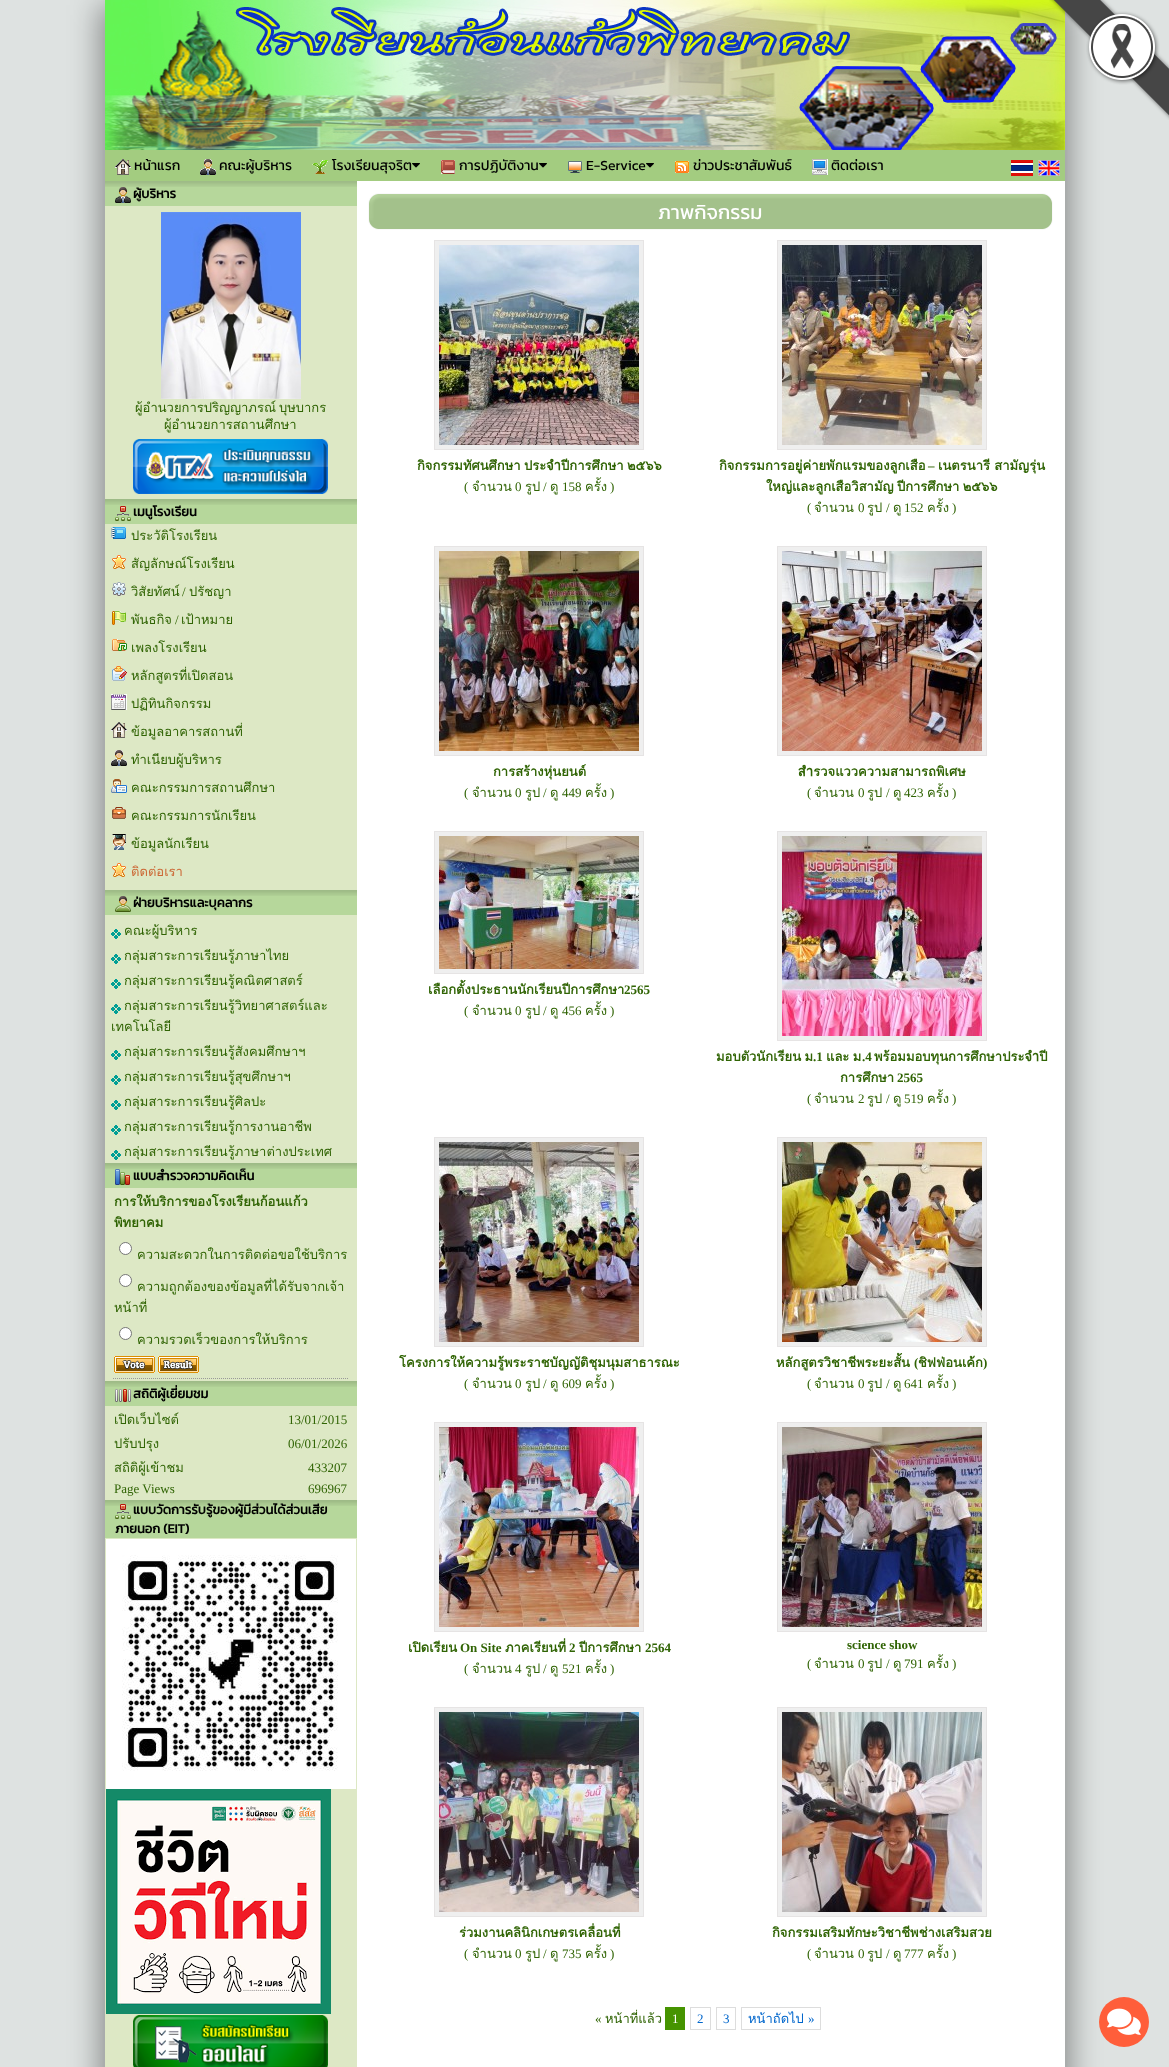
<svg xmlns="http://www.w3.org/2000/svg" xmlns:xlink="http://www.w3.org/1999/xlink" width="1169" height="2067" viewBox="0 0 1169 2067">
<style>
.cls-1{font:14px Kanit;fill:#000000}
.cls-2{font:bold 13px Kanit;fill:#000000}
.cls-3{font:13px Loma;fill:#306404}
.cls-4{font:13px Liberation Serif;fill:#306404}
.cls-5{font:13px Loma;fill:#cc6633}
.cls-6{font:bold 13px Loma;fill:#306404}
.cls-7{font:20px Kanit;fill:#ffffff}
.cls-8{font:bold 13px Liberation Serif;fill:#306404}
.cls-9{font:13px Liberation Serif;fill:#ffffff}
.cls-10{font:13px Liberation Serif;fill:#0066cc}
.cls-11{font:13px Loma;fill:#0066cc}
</style>
<rect width="100%" height="100%" fill="#dee2e1"/>
<rect fill="#000000" fill-opacity="0.39" filter="blur(15px)" x="100" y="5" width="970" height="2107"/>
<image xlink:href="image1.png" x="105" y="0" width="960" height="150"/>
<image xlink:href="image0.png" x="1049" y="0" width="120" height="120"/>
<rect fill="#a3cc80" x="105" y="150" width="960" height="31"/>
<image xlink:href="image2.png" x="115" y="159" width="16" height="16"/>
<image xlink:href="image3.png" x="200" y="159" width="16" height="16"/>
<image xlink:href="image4.png" x="312" y="160" width="16" height="14"/>
<image xlink:href="image5.png" x="412" y="163" width="8" height="5"/>
<image xlink:href="image6.png" x="441" y="160" width="14" height="14"/>
<image xlink:href="image5.png" x="539" y="163" width="8" height="5"/>
<image xlink:href="image7.png" x="568" y="161" width="14" height="12"/>
<image xlink:href="image5.png" x="646" y="163" width="8" height="5"/>
<image xlink:href="image8.png" x="675" y="161" width="14" height="12"/>
<image xlink:href="image9.png" x="812" y="159" width="16" height="16"/>
<image xlink:href="image10.png" x="1011" y="160" width="22" height="16"/>
<image xlink:href="image11.png" x="1038" y="160" width="22" height="16"/>
<rect fill="#dde8c5" x="105" y="206" width="252" height="1861"/>
<rect fill="#b6d79b" x="105" y="181" width="252" height="25"/>
<image xlink:href="image12.png" x="105" y="181" width="252" height="6"/>
<image xlink:href="image13.png" x="115" y="187" width="16" height="16"/>
<image xlink:href="image14.png" x="161" y="212" width="140" height="187"/>
<image xlink:href="image15.png" x="133" y="439" width="195" height="55"/>
<rect fill="#b6d79b" x="105" y="499" width="252" height="25"/>
<image xlink:href="image12.png" x="105" y="499" width="252" height="6"/>
<image xlink:href="image16.png" x="115" y="506" width="16" height="15"/>
<image xlink:href="image17.png" x="111" y="527" width="15" height="12"/>
<image xlink:href="image18.png" x="112" y="555" width="14" height="14"/>
<image xlink:href="image19.png" x="112" y="582" width="14" height="14"/>
<image xlink:href="image20.png" x="112" y="611" width="14" height="14"/>
<image xlink:href="image21.png" x="112" y="639" width="15" height="12"/>
<image xlink:href="image22.png" x="112" y="666" width="15" height="15"/>
<image xlink:href="image23.png" x="111" y="694" width="16" height="16"/>
<image xlink:href="image24.png" x="111" y="722" width="16" height="16"/>
<image xlink:href="image25.png" x="111" y="750" width="16" height="16"/>
<image xlink:href="image26.png" x="111" y="779" width="16" height="14"/>
<image xlink:href="image27.png" x="112" y="807" width="14" height="12"/>
<image xlink:href="image28.png" x="112" y="834" width="14" height="16"/>
<image xlink:href="image18.png" x="112" y="863" width="14" height="14"/>
<rect fill="#b6d79b" x="105" y="890" width="252" height="25"/>
<image xlink:href="image12.png" x="105" y="890" width="252" height="6"/>
<image xlink:href="image29.png" x="115" y="896" width="16" height="16"/>
<image xlink:href="image30.png" x="111" y="929" width="10" height="10"/>
<image xlink:href="image30.png" x="111" y="954" width="10" height="10"/>
<image xlink:href="image30.png" x="111" y="979" width="10" height="10"/>
<image xlink:href="image30.png" x="111" y="1004" width="10" height="10"/>
<image xlink:href="image30.png" x="111" y="1050" width="10" height="10"/>
<image xlink:href="image30.png" x="111" y="1075" width="10" height="10"/>
<image xlink:href="image30.png" x="111" y="1100" width="10" height="10"/>
<image xlink:href="image30.png" x="111" y="1125" width="10" height="10"/>
<image xlink:href="image30.png" x="111" y="1150" width="10" height="10"/>
<rect fill="#b6d79b" x="105" y="1163" width="252" height="25"/>
<image xlink:href="image12.png" x="105" y="1163" width="252" height="6"/>
<image xlink:href="image31.png" x="115" y="1169" width="15" height="16"/>
<circle fill="#ffffff" stroke="#767676" cx="125.5" cy="1248.5" r="6"/>
<circle fill="#ffffff" stroke="#767676" cx="125.5" cy="1280.5" r="6"/>
<circle fill="#ffffff" stroke="#767676" cx="125.5" cy="1333.5" r="6"/>
<path fill="none" stroke="#999999" stroke-dasharray="1 1" d="M113 1378.5H348"/>
<image xlink:href="image32.png" x="114" y="1356" width="41" height="17"/>
<image xlink:href="image33.png" x="158" y="1356" width="41" height="17"/>
<rect fill="#b6d79b" x="105" y="1381" width="252" height="25"/>
<image xlink:href="image12.png" x="105" y="1381" width="252" height="6"/>
<image xlink:href="image34.png" x="115" y="1389" width="16" height="13"/>
<rect fill="#b6d79b" x="105" y="1500" width="252" height="38"/>
<image xlink:href="image12.png" x="105" y="1500" width="252" height="6"/>
<image xlink:href="image35.png" x="115" y="1504" width="16" height="15"/>
<image xlink:href="image36.png" x="106" y="1539" width="250" height="250"/>
<image xlink:href="image37.png" x="106" y="1789" width="225" height="225"/>
<image xlink:href="image38.png" x="133" y="2015" width="195" height="52"/>
<rect fill="#ffffff" x="357" y="181" width="708" height="1886"/>
<rect fill="#b6d79b" x="369" y="194" width="683" height="35"/>
<image xlink:href="image39.png" x="367" y="191" width="25" height="41"/>
<image xlink:href="image40.png" x="392" y="191" width="638" height="41"/>
<image xlink:href="image41.png" x="1030" y="191" width="25" height="41"/>
<rect fill="#efefef" stroke="#e6e4e4" x="434.5" y="240.5" width="209" height="209"/>
<image xlink:href="image42.png" x="439" y="245" width="200" height="200"/>
<rect fill="#efefef" stroke="#e6e4e4" x="777.5" y="240.5" width="209" height="209"/>
<image xlink:href="image43.png" x="782" y="245" width="200" height="200"/>
<rect fill="#efefef" stroke="#e6e4e4" x="434.5" y="546.5" width="209" height="209"/>
<image xlink:href="image44.png" x="439" y="551" width="200" height="200"/>
<rect fill="#efefef" stroke="#e6e4e4" x="777.5" y="546.5" width="209" height="209"/>
<image xlink:href="image45.png" x="782" y="551" width="200" height="200"/>
<rect fill="#efefef" stroke="#e6e4e4" x="434.5" y="831.5" width="209" height="142"/>
<image xlink:href="image46.png" x="439" y="836" width="200" height="133"/>
<rect fill="#efefef" stroke="#e6e4e4" x="777.5" y="831.5" width="209" height="209"/>
<image xlink:href="image47.png" x="782" y="836" width="200" height="200"/>
<rect fill="#efefef" stroke="#e6e4e4" x="434.5" y="1137.5" width="209" height="209"/>
<image xlink:href="image48.png" x="439" y="1142" width="200" height="200"/>
<rect fill="#efefef" stroke="#e6e4e4" x="777.5" y="1137.5" width="209" height="209"/>
<image xlink:href="image49.png" x="782" y="1142" width="200" height="200"/>
<rect fill="#efefef" stroke="#e6e4e4" x="434.5" y="1422.5" width="209" height="209"/>
<image xlink:href="image50.png" x="439" y="1427" width="200" height="200"/>
<rect fill="#efefef" stroke="#e6e4e4" x="777.5" y="1422.5" width="209" height="209"/>
<image xlink:href="image51.png" x="782" y="1427" width="200" height="200"/>
<rect fill="#efefef" stroke="#e6e4e4" x="434.5" y="1707.5" width="209" height="209"/>
<image xlink:href="image52.png" x="439" y="1712" width="200" height="200"/>
<rect fill="#efefef" stroke="#e6e4e4" x="777.5" y="1707.5" width="209" height="209"/>
<image xlink:href="image53.png" x="782" y="1712" width="200" height="200"/>
<rect fill="#469400" x="665" y="2007" width="20" height="23"/>
<rect fill="none" stroke="#dddddd" x="690.5" y="2007.5" width="20" height="22"/>
<rect fill="none" stroke="#dddddd" x="716.5" y="2007.5" width="19" height="22"/>
<rect fill="none" stroke="#dddddd" x="741.5" y="2007.5" width="79" height="22"/>
<circle fill="#ff5e3a" cx="1124" cy="2022" r="25"/>
<image xlink:href="image54.png" x="1107" y="2008" width="34" height="27"/>
<text class="cls-1" x="134" y="170">หน้าแรก</text>
<text class="cls-1" x="219" y="170">คณะผู้บริหาร</text>
<text class="cls-1" x="332" y="170">โรงเรียนสุจริต</text>
<text class="cls-1" x="459" y="170">การปฏิบัติงาน</text>
<text class="cls-1" x="586" y="170">E-Service</text>
<text class="cls-1" x="693" y="170">ข่าวประชาสัมพันธ์</text>
<text class="cls-1" x="831" y="170">ติดต่อเรา</text>
<text class="cls-2" x="133" y="198">ผู้บริหาร</text>
<text class="cls-3" x="135" y="412">ผู้อำนวยการปริญญาภรณ์</text>
<text class="cls-3" x="279" y="412">บุษบากร</text>
<text class="cls-3" x="164" y="429">ผู้อำนวยการสถานศึกษา</text>
<text class="cls-2" x="133" y="516">เมนูโรงเรียน</text>
<text class="cls-3" x="131" y="540">ประวัติโรงเรียน</text>
<text class="cls-3" x="131" y="568">สัญลักษณ์โรงเรียน</text>
<text class="cls-3" x="131" y="596">วิสัยทัศน์</text>
<text class="cls-4" x="182" y="596">/</text>
<text class="cls-3" x="189" y="596">ปรัชญา</text>
<text class="cls-3" x="131" y="624">พันธกิจ</text>
<text class="cls-4" x="175" y="624">/</text>
<text class="cls-3" x="181" y="624">เป้าหมาย</text>
<text class="cls-3" x="131" y="652">เพลงโรงเรียน</text>
<text class="cls-3" x="131" y="680">หลักสูตรที่เปิดสอน</text>
<text class="cls-3" x="131" y="708">ปฏิทินกิจกรรม</text>
<text class="cls-3" x="131" y="736">ข้อมูลอาคารสถานที่</text>
<text class="cls-3" x="131" y="764">ทำเนียบผู้บริหาร</text>
<text class="cls-3" x="131" y="792">คณะกรรมการสถานศึกษา</text>
<text class="cls-3" x="131" y="820">คณะกรรมการนักเรียน</text>
<text class="cls-3" x="131" y="848">ข้อมูลนักเรียน</text>
<text class="cls-5" x="131" y="876">ติดต่อเรา</text>
<text class="cls-2" x="133" y="907">ฝ่ายบริหารและบุคลากร</text>
<text class="cls-3"><tspan x="124" y="935">คณะผู้บริหาร</tspan><tspan x="124" y="960">กลุ่มสาระการเรียนรู้ภาษาไทย</tspan><tspan x="124" y="985">กลุ่มสาระการเรียนรู้คณิตศาสตร์</tspan><tspan x="124" y="1010">กลุ่มสาระการเรียนรู้วิทยาศาสตร์และ</tspan></text>
<text class="cls-3" x="111" y="1031">เทคโนโลยี</text>
<text class="cls-3"><tspan x="124" y="1056">กลุ่มสาระการเรียนรู้สังคมศึกษาฯ</tspan><tspan x="124" y="1081">กลุ่มสาระการเรียนรู้สุขศึกษาฯ</tspan><tspan x="124" y="1106">กลุ่มสาระการเรียนรู้ศิลปะ</tspan><tspan x="124" y="1131">กลุ่มสาระการเรียนรู้การงานอาชีพ</tspan><tspan x="124" y="1156">กลุ่มสาระการเรียนรู้ภาษาต่างประเทศ</tspan></text>
<text class="cls-2" x="133" y="1180">แบบสำรวจความคิดเห็น</text>
<text class="cls-6"><tspan x="114" y="1206">การให้บริการของโรงเรียนก้อนแก้ว</tspan><tspan x="114" y="1227">พิทยาคม</tspan></text>
<text class="cls-3" x="137" y="1259">ความสะดวกในการติดต่อขอใช้บริการ</text>
<text class="cls-3" x="137" y="1291">ความถูกต้องของข้อมูลที่ได้รับจากเจ้า</text>
<text class="cls-3" x="114" y="1312">หน้าที่</text>
<text class="cls-3" x="137" y="1344">ความรวดเร็วของการให้บริการ</text>
<text class="cls-2" x="133" y="1398">สถิติผู้เยี่ยมชม</text>
<text class="cls-3" x="114" y="1424">เปิดเว็บไซต์</text>
<text class="cls-4" x="288" y="1424">13/01/2015</text>
<text class="cls-3" x="114" y="1448">ปรับปรุง</text>
<text class="cls-4" x="288" y="1448">06/01/2026</text>
<text class="cls-3" x="114" y="1472">สถิติผู้เข้าชม</text>
<text class="cls-4" x="308" y="1472">433207</text>
<text class="cls-4" x="114" y="1493">Page Views</text>
<text class="cls-4" x="308" y="1493">696967</text>
<text class="cls-2" x="133" y="1514">แบบวัดการรับรู้ของผู้มีส่วนได้ส่วนเสีย</text>
<text class="cls-2" x="115" y="1533">ภายนอก (EIT)</text>
<text class="cls-7" x="658" y="219">ภาพกิจกรรม</text>
<text class="cls-6" x="417" y="470" word-spacing="-1">กิจกรรมทัศนศึกษา ประจำปีการศึกษา ๒๕๖๖</text>
<text class="cls-4" x="464" y="491">(</text>
<text class="cls-3" x="472" y="491">จำนวน</text>
<text class="cls-4" x="515" y="491">0</text>
<text class="cls-3" x="525" y="491">รูป</text>
<text class="cls-4" x="543" y="491">/</text>
<text class="cls-4" x="562" y="491">158</text>
<text class="cls-3" x="585" y="491">ครั้ง</text>
<text class="cls-4" x="610" y="491">)</text>
<text class="cls-3" x="550" y="491">ดู</text>
<text class="cls-6" x="719" y="470">กิจกรรมการอยู่ค่ายพักแรมของลูกเสือ</text>
<text class="cls-8" x="928" y="470">–</text>
<text class="cls-6" x="938" y="470">เนตรนารี สามัญรุ่น</text>
<text class="cls-6" x="766" y="491" word-spacing="-1">ใหญ่และลูกเสือวิสามัญ ปีการศึกษา ๒๕๖๖</text>
<text class="cls-4" x="807" y="512">(</text>
<text class="cls-3" x="814" y="512">จำนวน</text>
<text class="cls-4" x="858" y="512">0</text>
<text class="cls-3" x="867" y="512">รูป</text>
<text class="cls-4" x="886" y="512">/</text>
<text class="cls-4" x="904" y="512">152</text>
<text class="cls-3" x="927" y="512">ครั้ง</text>
<text class="cls-4" x="952" y="512">)</text>
<text class="cls-3" x="893" y="512">ดู</text>
<text class="cls-6" x="493" y="776">การสร้างหุ่นยนต์</text>
<text class="cls-4" x="464" y="797">(</text>
<text class="cls-3" x="472" y="797">จำนวน</text>
<text class="cls-4" x="515" y="797">0</text>
<text class="cls-3" x="525" y="797">รูป</text>
<text class="cls-4" x="543" y="797">/</text>
<text class="cls-4" x="562" y="797">449</text>
<text class="cls-3" x="585" y="797">ครั้ง</text>
<text class="cls-4" x="610" y="797">)</text>
<text class="cls-3" x="550" y="797">ดู</text>
<text class="cls-6" x="798" y="776">สำรวจแววความสามารถพิเศษ</text>
<text class="cls-4" x="807" y="797">(</text>
<text class="cls-3" x="814" y="797">จำนวน</text>
<text class="cls-4" x="858" y="797">0</text>
<text class="cls-3" x="867" y="797">รูป</text>
<text class="cls-4" x="886" y="797">/</text>
<text class="cls-4" x="904" y="797">423</text>
<text class="cls-3" x="927" y="797">ครั้ง</text>
<text class="cls-4" x="952" y="797">)</text>
<text class="cls-3" x="893" y="797">ดู</text>
<text class="cls-6" x="428" y="994">เลือกตั้งประธานนักเรียนปีการศึกษา</text>
<text class="cls-8" x="624" y="994">2565</text>
<text class="cls-4" x="464" y="1015">(</text>
<text class="cls-3" x="472" y="1015">จำนวน</text>
<text class="cls-4" x="515" y="1015">0</text>
<text class="cls-3" x="525" y="1015">รูป</text>
<text class="cls-4" x="543" y="1015">/</text>
<text class="cls-4" x="562" y="1015">456</text>
<text class="cls-3" x="585" y="1015">ครั้ง</text>
<text class="cls-4" x="610" y="1015">)</text>
<text class="cls-3" x="550" y="1015">ดู</text>
<text class="cls-6" x="716" y="1061" word-spacing="-1">มอบตัวนักเรียน ม</text>
<text class="cls-8" x="813" y="1061">.1</text>
<text class="cls-6" x="826" y="1061" word-spacing="-1">และ ม</text>
<text class="cls-8" x="862" y="1061">.4</text>
<text class="cls-6" x="874" y="1061">พร้อมมอบทุนการศึกษาประจำปี</text>
<text class="cls-6" x="840" y="1082">การศึกษา</text>
<text class="cls-8" x="897" y="1082">2565</text>
<text class="cls-4" x="807" y="1103">(</text>
<text class="cls-3" x="814" y="1103">จำนวน</text>
<text class="cls-4" x="858" y="1103">2</text>
<text class="cls-3" x="867" y="1103">รูป</text>
<text class="cls-4" x="886" y="1103">/</text>
<text class="cls-4" x="904" y="1103">519</text>
<text class="cls-3" x="927" y="1103">ครั้ง</text>
<text class="cls-4" x="952" y="1103">)</text>
<text class="cls-3" x="893" y="1103">ดู</text>
<text class="cls-6" x="399" y="1367">โครงการให้ความรู้พระราชบัญญัติชุมนุมสาธารณะ</text>
<text class="cls-4" x="464" y="1388">(</text>
<text class="cls-3" x="472" y="1388">จำนวน</text>
<text class="cls-4" x="515" y="1388">0</text>
<text class="cls-3" x="525" y="1388">รูป</text>
<text class="cls-4" x="543" y="1388">/</text>
<text class="cls-4" x="562" y="1388">609</text>
<text class="cls-3" x="585" y="1388">ครั้ง</text>
<text class="cls-4" x="610" y="1388">)</text>
<text class="cls-3" x="550" y="1388">ดู</text>
<text class="cls-6" x="776" y="1367">หลักสูตรวิชาชีพระยะสั้น</text>
<text class="cls-8" x="914" y="1367">(</text>
<text class="cls-6" x="918" y="1367">ชิฟฟ่อนเค้ก</text>
<text class="cls-8" x="983" y="1367">)</text>
<text class="cls-4" x="807" y="1388">(</text>
<text class="cls-3" x="814" y="1388">จำนวน</text>
<text class="cls-4" x="858" y="1388">0</text>
<text class="cls-3" x="867" y="1388">รูป</text>
<text class="cls-4" x="886" y="1388">/</text>
<text class="cls-4" x="904" y="1388">641</text>
<text class="cls-3" x="927" y="1388">ครั้ง</text>
<text class="cls-4" x="952" y="1388">)</text>
<text class="cls-3" x="893" y="1388">ดู</text>
<text class="cls-6" x="408" y="1652">เปิดเรียน</text>
<text class="cls-8" x="460" y="1652">On Site</text>
<text class="cls-6" x="505" y="1652">ภาคเรียนที่</text>
<text class="cls-8" x="569" y="1652">2</text>
<text class="cls-6" x="579" y="1652">ปีการศึกษา</text>
<text class="cls-8" x="645" y="1652">2564</text>
<text class="cls-4" x="464" y="1673">(</text>
<text class="cls-3" x="472" y="1673">จำนวน</text>
<text class="cls-4" x="515" y="1673">4</text>
<text class="cls-3" x="525" y="1673">รูป</text>
<text class="cls-4" x="543" y="1673">/</text>
<text class="cls-4" x="562" y="1673">521</text>
<text class="cls-3" x="585" y="1673">ครั้ง</text>
<text class="cls-4" x="610" y="1673">)</text>
<text class="cls-3" x="550" y="1673">ดู</text>
<text class="cls-8" x="847" y="1649">science show</text>
<text class="cls-4" x="807" y="1668">(</text>
<text class="cls-3" x="814" y="1668">จำนวน</text>
<text class="cls-4" x="858" y="1668">0</text>
<text class="cls-3" x="867" y="1668">รูป</text>
<text class="cls-4" x="886" y="1668">/</text>
<text class="cls-4" x="904" y="1668">791</text>
<text class="cls-3" x="927" y="1668">ครั้ง</text>
<text class="cls-4" x="952" y="1668">)</text>
<text class="cls-3" x="893" y="1668">ดู</text>
<text class="cls-6" x="459" y="1937">ร่วมงานคลินิกเกษตรเคลื่อนที่</text>
<text class="cls-4" x="464" y="1958">(</text>
<text class="cls-3" x="472" y="1958">จำนวน</text>
<text class="cls-4" x="515" y="1958">0</text>
<text class="cls-3" x="525" y="1958">รูป</text>
<text class="cls-4" x="543" y="1958">/</text>
<text class="cls-4" x="562" y="1958">735</text>
<text class="cls-3" x="585" y="1958">ครั้ง</text>
<text class="cls-4" x="610" y="1958">)</text>
<text class="cls-3" x="550" y="1958">ดู</text>
<text class="cls-6" x="772" y="1937">กิจกรรมเสริมทักษะวิชาชีพช่างเสริมสวย</text>
<text class="cls-4" x="807" y="1958">(</text>
<text class="cls-3" x="814" y="1958">จำนวน</text>
<text class="cls-4" x="858" y="1958">0</text>
<text class="cls-3" x="867" y="1958">รูป</text>
<text class="cls-4" x="886" y="1958">/</text>
<text class="cls-4" x="904" y="1958">777</text>
<text class="cls-3" x="927" y="1958">ครั้ง</text>
<text class="cls-4" x="952" y="1958">)</text>
<text class="cls-3" x="893" y="1958">ดู</text>
<text class="cls-4" x="595" y="2023">«</text>
<text class="cls-3" x="605" y="2023">หน้าที่แล้ว</text>
<text class="cls-9" x="672" y="2023">1</text>
<text class="cls-10" x="697" y="2023">2</text>
<text class="cls-10" x="723" y="2023">3</text>
<text class="cls-11" x="748" y="2023">หน้าถัดไป</text>
<text class="cls-10" x="808" y="2023">»</text>
</svg>
